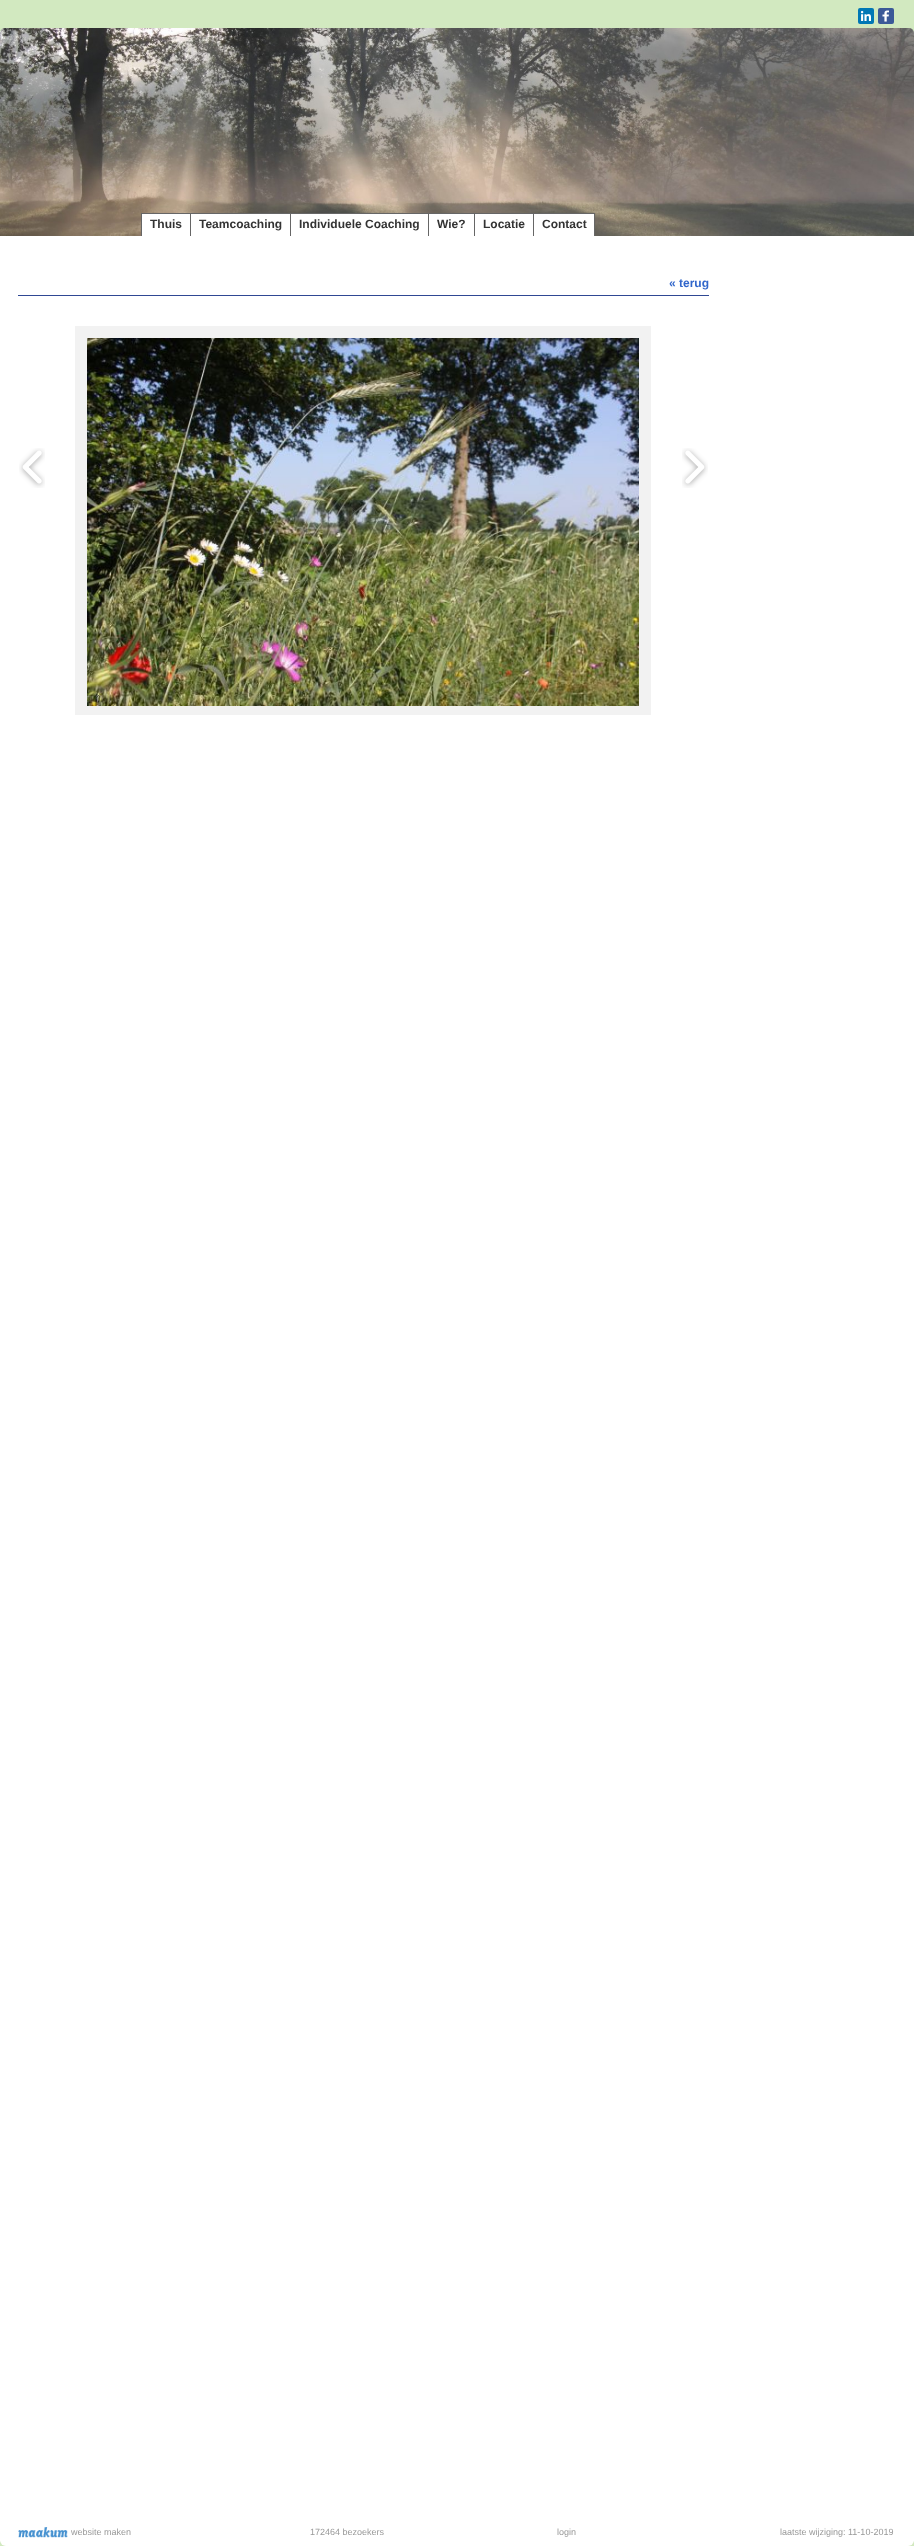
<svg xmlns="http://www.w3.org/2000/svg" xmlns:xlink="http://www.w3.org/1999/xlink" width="914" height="2546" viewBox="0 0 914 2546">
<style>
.cls-1{font:bold 12px Liberation Sans;fill:#333333}
.cls-2{font:bold 12px Liberation Sans;fill:#3267cb}
.cls-3{font:9px Liberation Sans;fill:#999999}
</style>
<rect width="100%" height="100%" fill="#d2e9c0"/>
<rect fill="#0077b5" x="858" y="8" width="16" height="16" rx="2"/>
<image xlink:href="image0.png" x="860" y="10" width="11" height="11"/>
<rect fill="#3b5998" x="878" y="8" width="16" height="16" rx="2"/>
<image xlink:href="image1.png" x="882" y="10" width="7" height="12"/>
<rect fill="#ffffff" x="0" y="28" width="914" height="2518" rx="6"/>
<image xlink:href="image2.png" x="0" y="28" width="914" height="208"/>
<rect fill="#666666" x="141" y="213" width="1" height="23"/>
<rect fill="#ffffff" x="142" y="214" width="48" height="22"/>
<rect fill="#666666" x="142" y="213" width="453" height="1"/>
<rect fill="#666666" x="190" y="213" width="1" height="23"/>
<rect fill="#ffffff" x="191" y="214" width="99" height="22"/>
<rect fill="#666666" x="290" y="213" width="1" height="23"/>
<rect fill="#ffffff" x="291" y="214" width="137" height="22"/>
<rect fill="#666666" x="428" y="213" width="1" height="23"/>
<rect fill="#ffffff" x="429" y="214" width="45" height="22"/>
<rect fill="#666666" x="474" y="213" width="1" height="23"/>
<rect fill="#ffffff" x="475" y="214" width="58" height="22"/>
<rect fill="#666666" x="533" y="213" width="1" height="23"/>
<rect fill="#ffffff" x="534" y="214" width="60" height="22"/>
<rect fill="#666666" x="594" y="213" width="1" height="23"/>
<rect fill="#2f4893" x="18" y="295" width="691" height="1"/>
<image xlink:href="image3.png" x="19" y="448" width="26" height="40"/>
<rect fill="#f2f2f2" x="75" y="326" width="576" height="389"/>
<image xlink:href="image4.png" x="87" y="338" width="552" height="368"/>
<image xlink:href="image5.png" x="682" y="448" width="26" height="40"/>
<image xlink:href="image6.png" x="18" y="2527" width="50" height="11"/>
<text class="cls-1" x="150" y="228">Thuis</text>
<text class="cls-1" x="199" y="228">Teamcoaching</text>
<text class="cls-1" x="299" y="228">Individuele Coaching</text>
<text class="cls-1" x="437" y="228">Wie?</text>
<text class="cls-1" x="483" y="228">Locatie</text>
<text class="cls-1" x="542" y="228">Contact</text>
<text class="cls-2" x="669" y="287">« terug</text>
<text class="cls-3" x="71" y="2535">website maken</text>
<text class="cls-3" x="310" y="2535">172464 bezoekers</text>
<text class="cls-3" x="557" y="2535">login</text>
<text class="cls-3" x="780" y="2535">laatste wijziging: 11-10-2019</text>
</svg>
